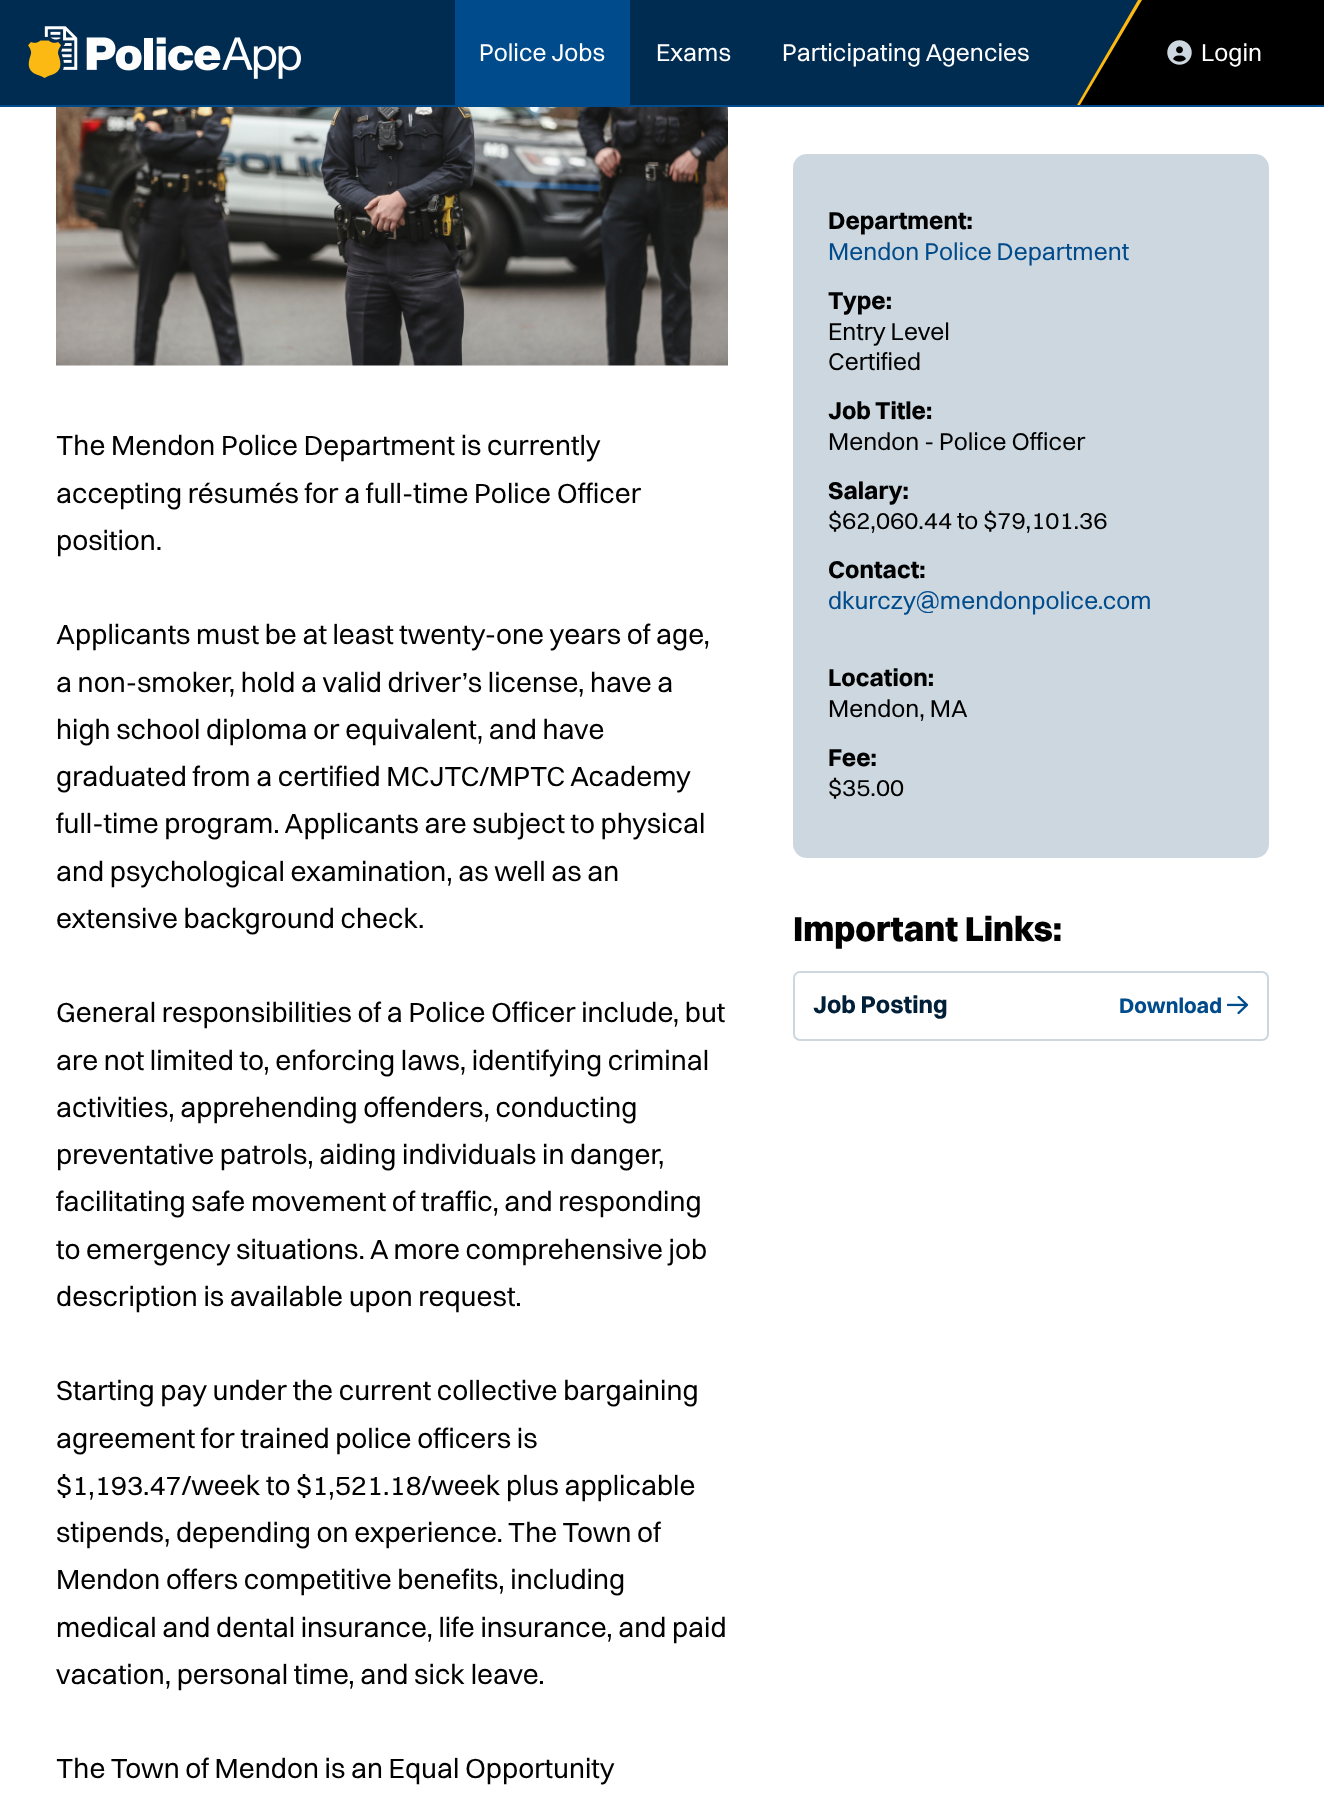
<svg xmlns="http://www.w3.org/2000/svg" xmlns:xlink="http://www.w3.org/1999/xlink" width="1324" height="1814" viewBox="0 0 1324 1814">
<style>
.cls-1{font:24.5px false;fill:#ffffff}
.cls-2{font:28px false;fill:#000000}
.cls-3{font:bold 24.5px false;fill:#000000}
.cls-4{font:24.5px false;fill:#004b8b}
.cls-5{font:24.5px false;fill:#000000}
.cls-6{font:800 35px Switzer;fill:#000000}
.cls-7{font:bold 24.5px false;fill:#001f39}
.cls-8{font:bold 21.5px false;fill:#004b8b}
</style>
<rect width="100%" height="100%" fill="#ffffff"/>
<rect fill="#002c52" x="0" y="0" width="1138" height="105"/>
<rect fill="#004b8b" x="0" y="105" width="1324" height="2"/>
<image xlink:href="image0.png" x="28" y="26" width="273" height="53"/>
<rect fill="#004b8b" x="455" y="0" width="175" height="105"/>
<path fill="#fdb913" d="M1138 0L1077 105H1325V0Z"/>
<path fill="#000000" d="M1142 0L1080 105H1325V0Z"/>
<image xlink:href="image1.png" x="1167" y="40" width="25" height="25"/>
<image xlink:href="image2.png" x="56" y="107" width="672" height="259"/>
<rect fill="#ccd7df" x="793" y="154" width="476" height="704" rx="14"/>
<rect fill="none" stroke="#ccd7df" stroke-width="2" x="794" y="972" width="474" height="68" rx="6"/>
<image xlink:href="image3.png" x="1227" y="996" width="22" height="19"/>
<text class="cls-1" x="479" y="61">Police Jobs</text>
<text class="cls-1" x="656" y="61">Exams</text>
<text class="cls-1" x="782" y="61">Participating Agencies</text>
<text class="cls-1" x="1201" y="61">Login</text>
<text class="cls-2"><tspan x="56" y="455">The Mendon Police Department is currently</tspan><tspan x="56" y="503">accepting résumés for a full-time Police Officer</tspan><tspan x="56" y="550">position.</tspan></text>
<text class="cls-2"><tspan x="56" y="644">Applicants must be at least twenty-one years of age,</tspan><tspan x="56" y="692">a non-smoker, hold a valid driver’s license, have a</tspan><tspan x="56" y="739">high school diploma or equivalent, and have</tspan><tspan x="56" y="786">graduated from a certified MCJTC/MPTC Academy</tspan><tspan x="56" y="833">full-time program. Applicants are subject to physical</tspan><tspan x="56" y="881">and psychological examination, as well as an</tspan><tspan x="56" y="928">extensive background check.</tspan></text>
<text class="cls-2"><tspan x="56" y="1022">General responsibilities of a Police Officer include, but</tspan><tspan x="56" y="1070">are not limited to, enforcing laws, identifying criminal</tspan><tspan x="56" y="1117">activities, apprehending offenders, conducting</tspan><tspan x="56" y="1164">preventative patrols, aiding individuals in danger,</tspan><tspan x="56" y="1211">facilitating safe movement of traffic, and responding</tspan><tspan x="56" y="1259">to emergency situations. A more comprehensive job</tspan><tspan x="56" y="1306">description is available upon request.</tspan></text>
<text class="cls-2"><tspan x="56" y="1400">Starting pay under the current collective bargaining</tspan><tspan x="56" y="1448">agreement for trained police officers is</tspan><tspan x="56" y="1495">$1,193.47/week to $1,521.18/week plus applicable</tspan><tspan x="56" y="1542">stipends, depending on experience. The Town of</tspan><tspan x="56" y="1589">Mendon offers competitive benefits, including</tspan><tspan x="56" y="1637">medical and dental insurance, life insurance, and paid</tspan><tspan x="56" y="1684">vacation, personal time, and sick leave.</tspan></text>
<text class="cls-2" x="56" y="1778">The Town of Mendon is an Equal Opportunity</text>
<text class="cls-3" x="828" y="229">Department:</text>
<text class="cls-4" x="828" y="260">Mendon Police Department</text>
<text class="cls-3" x="828" y="309">Type:</text>
<text class="cls-5"><tspan x="828" y="340">Entry Level</tspan><tspan x="828" y="370">Certified</tspan></text>
<text class="cls-3" x="828" y="419">Job Title:</text>
<text class="cls-5" x="828" y="450">Mendon - Police Officer</text>
<text class="cls-3" x="828" y="499">Salary:</text>
<text class="cls-5" x="828" y="529">$62,060.44 to $79,101.36</text>
<text class="cls-3" x="828" y="578">Contact:</text>
<text class="cls-4" x="828" y="609">dkurczy@mendonpolice.com</text>
<text class="cls-3" x="828" y="686">Location:</text>
<text class="cls-5" x="828" y="717">Mendon, MA</text>
<text class="cls-3" x="828" y="766">Fee:</text>
<text class="cls-5" x="828" y="796">$35.00</text>
<text class="cls-6" x="793" y="941">Important Links:</text>
<text class="cls-7" x="813" y="1013">Job Posting</text>
<text class="cls-8" x="1119" y="1013">Download</text>
</svg>
